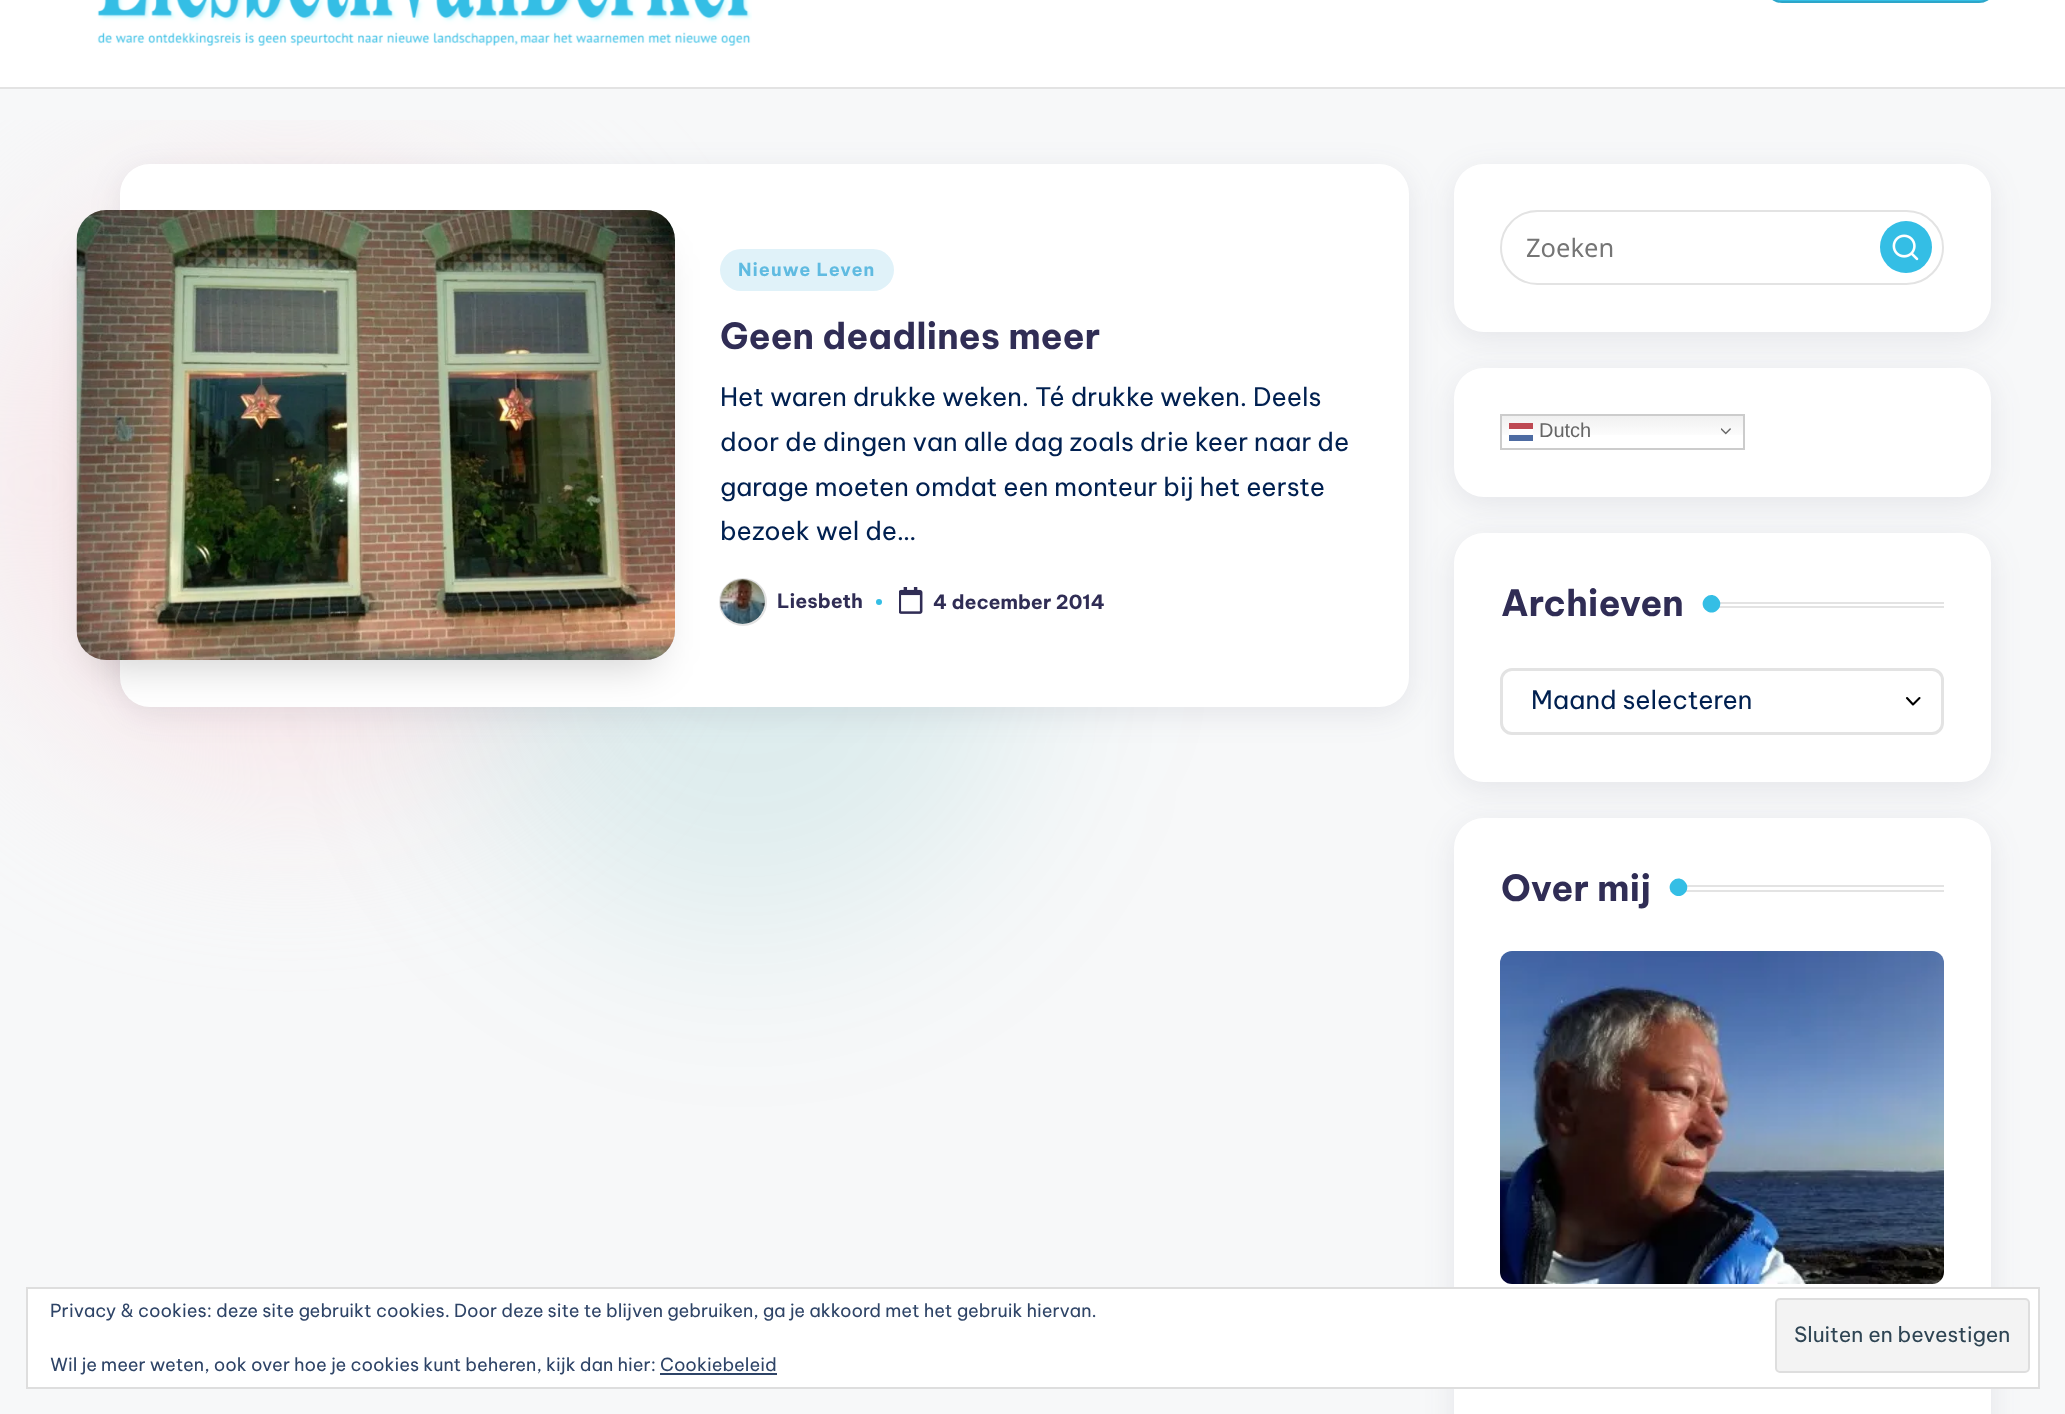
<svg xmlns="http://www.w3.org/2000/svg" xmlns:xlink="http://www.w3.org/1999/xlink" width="2065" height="1414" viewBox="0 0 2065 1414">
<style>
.cls-1{font:bold 18px Be Vietnam Pro;letter-spacing:1px;fill:#60bbe1}
.cls-2{font:bold 36px Be Vietnam Pro;fill:#302d55}
.cls-3{font:25.5px Be Vietnam Pro;fill:#002050}
.cls-4{font:bold 19.5px Be Vietnam Pro;fill:#302d55}
.cls-5{font:25.5px Noto Sans;fill:#757575}
.cls-6{font:20px Liberation Sans;fill:#666666}
.cls-7{font:18px Be Vietnam Pro;fill:#2e4467}
.cls-8{font:21px Be Vietnam Pro;fill:#2e4453}
</style>
<defs>
<clipPath id="clip1"><rect x="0" y="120" width="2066" height="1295"/></clipPath>
<linearGradient id="g1" gradientUnits="userSpaceOnUse" x1="1622" y1="414" x2="1622" y2="450"><stop offset="0" stop-color="#efefef"/><stop offset="0.7" stop-color="#ffffff"/></linearGradient>
<linearGradient id="g2" gradientUnits="userSpaceOnUse" x1="1622" y1="414" x2="1622" y2="450"><stop offset="0" stop-color="#fcfcfc"/><stop offset="0.7" stop-color="#ffffff"/></linearGradient>
</defs>
<rect width="100%" height="100%" fill="#f7f8f9"/>
<g clip-path="url(#clip1)">
<rect fill="#f7e3e6" filter="blur(96px)" x="0" y="195" width="576" height="576" rx="288"/>
</g>
<rect fill="#04868b" fill-opacity="0.1" filter="blur(96px)" x="456" y="360" width="576" height="576" rx="288"/>
<rect fill="#ffffff" x="0" y="0" width="2065" height="87"/>
<rect fill="#e3e3e3" x="0" y="87" width="2065" height="2"/>
<rect fill="#34bee5" x="1770" y="-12" width="221" height="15" rx="12"/>
<rect fill="none" stroke="#000000" stroke-opacity="0.12" stroke-width="2" x="1771" y="-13" width="219" height="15" rx="11"/>
<image xlink:href="image0.png" x="97" y="0" width="655" height="46"/>
<rect fill="#454360" fill-opacity="0.1" filter="blur(15px)" x="120" y="171" width="1289" height="543" rx="30"/>
<rect fill="#ffffff" x="120" y="164" width="1289" height="543" rx="30"/>
<rect fill="#e0f2f9" x="720" y="249" width="174" height="42" rx="21"/>
<image xlink:href="image2.png" x="720" y="579" width="45" height="45"/>
<circle fill="none" stroke="#b9b9b9" stroke-opacity="0.4" stroke-width="2" cx="743" cy="602" r="23"/>
<rect fill="#000000" fill-opacity="0.18" filter="blur(21px)" x="95" y="252" width="562" height="414" rx="12"/>
<rect fill="#d1d1d1" x="77" y="210" width="598" height="450" rx="30"/>
<image xlink:href="image1.png" x="76" y="210" width="599" height="450"/>
<circle fill="#34bee5" cx="879" cy="602" r="3"/>
<image xlink:href="image3.png" x="899" y="587" width="24" height="27"/>
<rect fill="#454360" fill-opacity="0.1" filter="blur(15px)" x="1454" y="171" width="537" height="168" rx="30"/>
<rect fill="#ffffff" x="1454" y="164" width="537" height="168" rx="30"/>
<rect fill="none" stroke="#e3e3e3" stroke-width="2" x="1501" y="211" width="442" height="73" rx="36.5"/>
<circle fill="#34bee5" cx="1906" cy="247" r="26"/>
<image xlink:href="image4.png" x="1892" y="234" width="27" height="27"/>
<rect fill="#454360" fill-opacity="0.1" filter="blur(15px)" x="1454" y="375" width="537" height="129" rx="30"/>
<rect fill="#ffffff" x="1454" y="368" width="537" height="129" rx="30"/>
<rect fill="url(#g1)" x="1502" y="416" width="241" height="19"/>
<rect fill="url(#g2)" x="1509" y="429" width="24" height="5"/>
<rect fill="none" stroke="#cccccc" stroke-width="2" x="1501" y="415" width="243" height="34"/>
<rect fill="#be4953" x="1509" y="423" width="24" height="6"/>
<image xlink:href="image5.png" x="1721" y="428" width="10" height="7"/>
<rect fill="#4d6ba2" x="1509" y="435" width="24" height="6"/>
<rect fill="#454360" fill-opacity="0.1" filter="blur(15px)" x="1454" y="540" width="537" height="249" rx="30"/>
<rect fill="#ffffff" x="1454" y="533" width="537" height="249" rx="30"/>
<rect fill="#e3e3e3" x="1720" y="602" width="224" height="2"/>
<rect fill="#e3e3e3" x="1703" y="606" width="241" height="2"/>
<path fill="#34bee5" d="M1705.5 597.5C1713.5 589.5 1726 602 1717.5 610C1709.5 618 1697 605.5 1705.5 597.5Z"/>
<path fill="none" stroke="#000000" stroke-width="2.1" stroke-linecap="round" stroke-linejoin="round" d="M1907 698L1913 704.5L1919.5 698"/>
<rect fill="none" stroke="#e3e3e3" stroke-width="3" x="1501.5" y="669.5" width="441" height="64" rx="10.5"/>
<rect fill="#454360" fill-opacity="0.1" filter="blur(15px)" x="1454" y="825" width="537" height="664" rx="30"/>
<rect fill="#ffffff" x="1454" y="818" width="537" height="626" rx="30"/>
<rect fill="#e3e3e3" x="1686" y="885" width="258" height="2"/>
<rect fill="#e3e3e3" x="1670" y="890" width="274" height="2"/>
<path fill="#34bee5" d="M1672.5 881C1680.5 873 1693 885.5 1684.5 893.5C1676.5 901.5 1664 889 1672.5 881Z"/>
<image xlink:href="image6.png" x="1500" y="951" width="444" height="333"/>
<rect fill="#ffffff" stroke="#dedede" stroke-width="2" x="27" y="1288" width="2012" height="100"/>
<rect fill="#f3f3f3" stroke="#dedede" stroke-width="2" x="1776" y="1299" width="253" height="73" rx="4"/>
<rect fill="#2e4467" x="660" y="1373" width="117" height="2"/>
<text class="cls-1" x="738" y="276">Nieuwe Leven</text>
<text class="cls-2" x="720" y="349">Geen deadlines meer</text>
<text class="cls-3"><tspan x="720" y="406">Het waren drukke weken. Té drukke weken. Deels</tspan><tspan x="720" y="451">door de dingen van alle dag zoals drie keer naar de</tspan><tspan x="720" y="496">garage moeten omdat een monteur bij het eerste</tspan><tspan x="720" y="540">bezoek wel de…</tspan></text>
<text class="cls-4" x="777" y="608">Liesbeth</text>
<text class="cls-4" x="933" y="609">4 december 2014</text>
<text class="cls-5" x="1526" y="257">Zoeken</text>
<text class="cls-6" x="1539" y="437">Dutch</text>
<text class="cls-2" x="1501" y="616">Archieven</text>
<text class="cls-3" x="1531" y="709">Maand selecteren</text>
<text class="cls-2" x="1501" y="901">Over mij</text>
<text class="cls-7" x="50" y="1317">Privacy &amp; cookies: deze site gebruikt cookies. Door deze site te blijven gebruiken, ga je akkoord met het gebruik hiervan.</text>
<text class="cls-8" x="1794" y="1342">Sluiten en bevestigen</text>
<text class="cls-7" x="50" y="1371">Wil je meer weten, ook over hoe je cookies kunt beheren, kijk dan hier: Cookiebeleid</text>
</svg>
